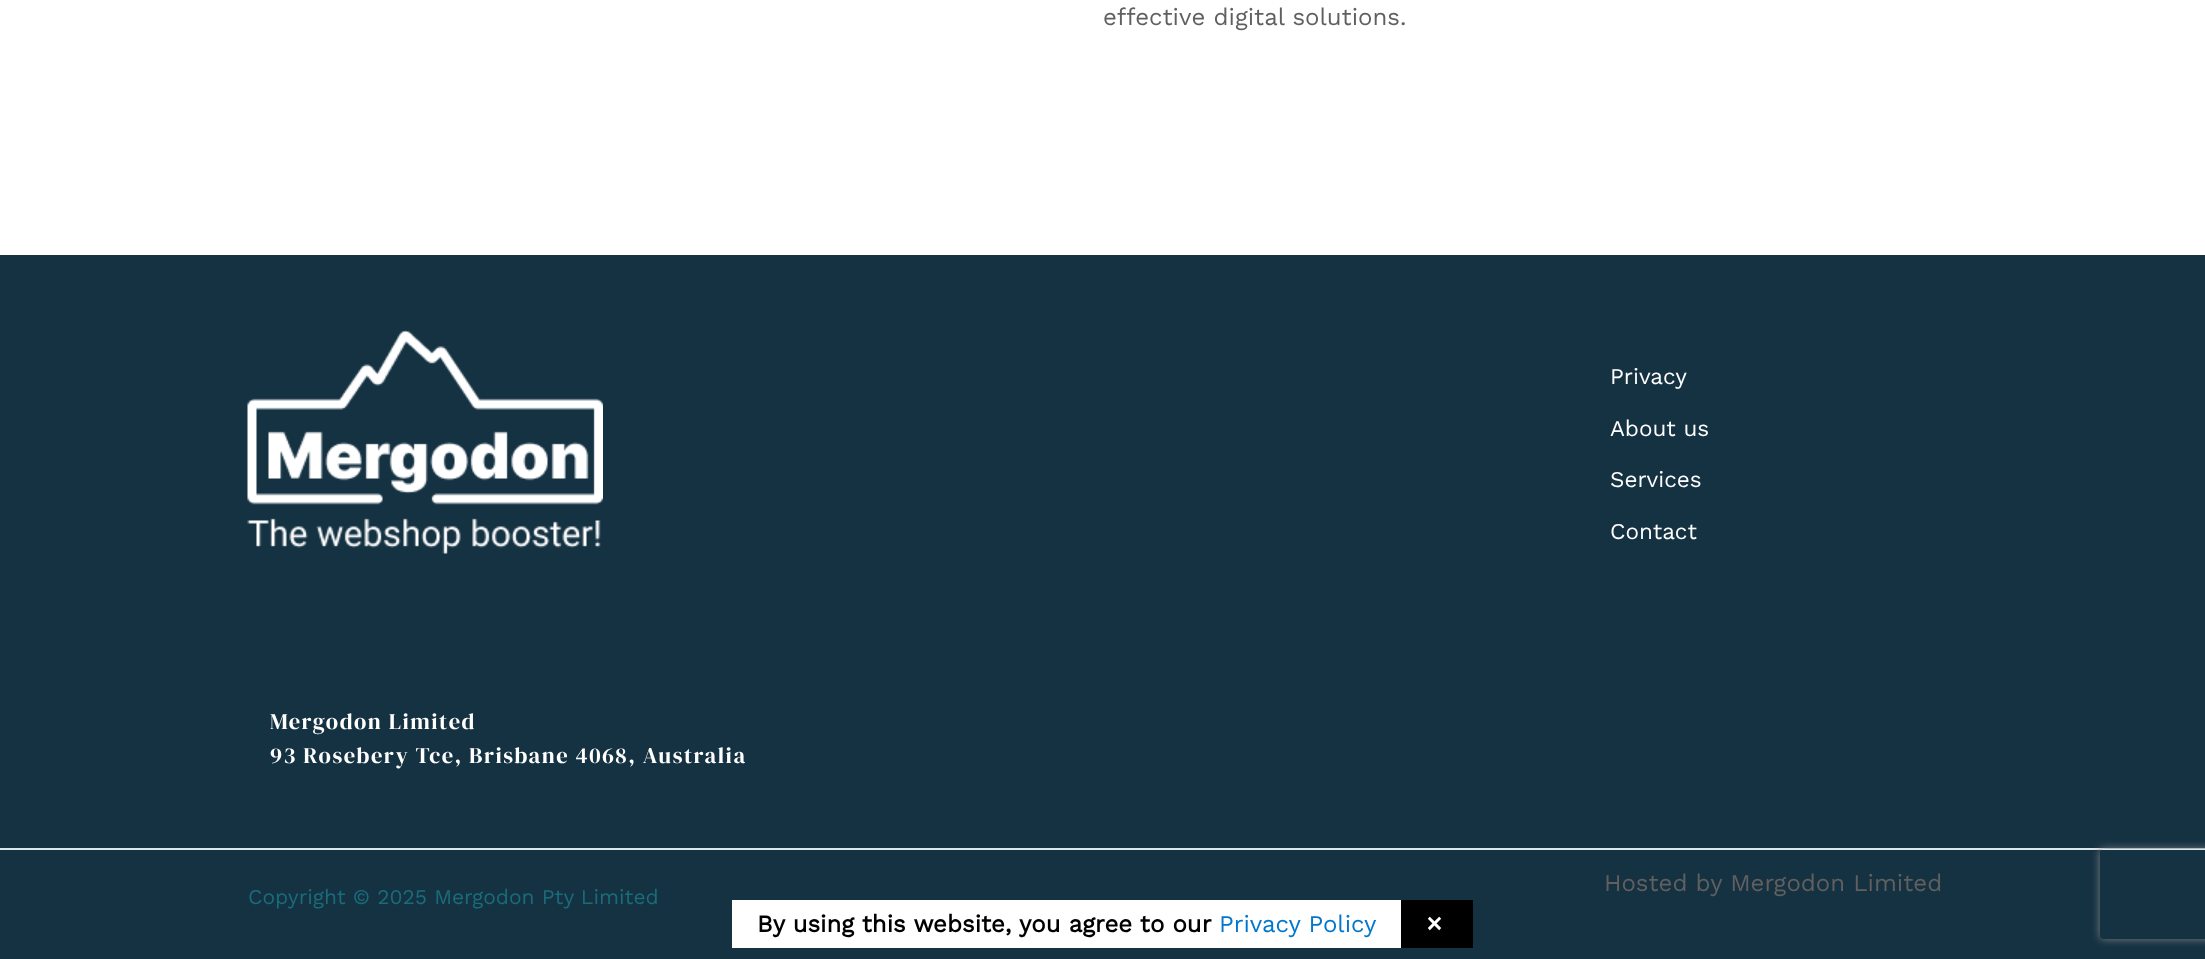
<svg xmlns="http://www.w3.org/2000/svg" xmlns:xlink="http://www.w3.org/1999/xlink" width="2205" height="959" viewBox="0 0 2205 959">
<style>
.cls-1{font:24px Work Sans;fill:#625f5f}
.cls-2{font:22.5px Work Sans;fill:#ffffff}
.cls-3{font:22.5px DM Serif Display;letter-spacing:1.5px;fill:#ffffff}
.cls-4{font:21px Work Sans;fill:#1a6c7a}
.cls-5{font:bold 24px Work Sans;fill:#000000}
.cls-6{font:24px Work Sans;fill:#0077cc}
.cls-7{font:100 36px Montserrat;letter-spacing:3px;fill:#ffffff}
</style>
<defs>
<clipPath id="clip1"><path d="M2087 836H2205V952H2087ZM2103 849H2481C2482.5 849 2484 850.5 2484 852V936C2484 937.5 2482.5 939 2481 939H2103C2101.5 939 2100 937.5 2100 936V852C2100 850.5 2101.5 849 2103 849Z" clip-rule="evenodd"/></clipPath>
</defs>
<rect width="100%" height="100%" fill="#ffffff"/>
<rect fill="#153243" x="0" y="255" width="2205" height="593"/>
<image xlink:href="image0.png" x="247" y="330" width="356" height="224"/>
<rect fill="#153243" x="0" y="850" width="2205" height="109"/>
<rect fill="#dbe8eb" x="0" y="848" width="2205" height="2"/>
<g clip-path="url(#clip1)">
<rect fill="#808080" filter="blur(4px)" x="2100" y="849" width="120" height="90" rx="3"/>
</g>
<rect fill="#ffffff" x="732" y="900" width="669" height="48"/>
<rect fill="#000000" x="1401" y="900" width="72" height="48"/>
<text class="cls-1" x="1103" y="25">effective digital solutions.</text>
<text class="cls-2" x="1610" y="384">Privacy</text>
<text class="cls-2" x="1610" y="436">About us</text>
<text class="cls-2" x="1610" y="487">Services</text>
<text class="cls-2" x="1610" y="539">Contact</text>
<text class="cls-3"><tspan x="270" y="729">Mergodon Limited</tspan><tspan x="270" y="763">93 Rosebery Tce, Brisbane 4068, Australia</tspan></text>
<text class="cls-4" x="248" y="904">Copyright © 2025 Mergodon Pty Limited</text>
<text class="cls-1" x="1604" y="891">Hosted by Mergodon Limited</text>
<text class="cls-5" x="757" y="932">By using this website, you agree to our</text>
<text class="cls-6" x="1219" y="932">Privacy Policy</text>
<text class="cls-7" x="1424" y="936">×</text>
</svg>
